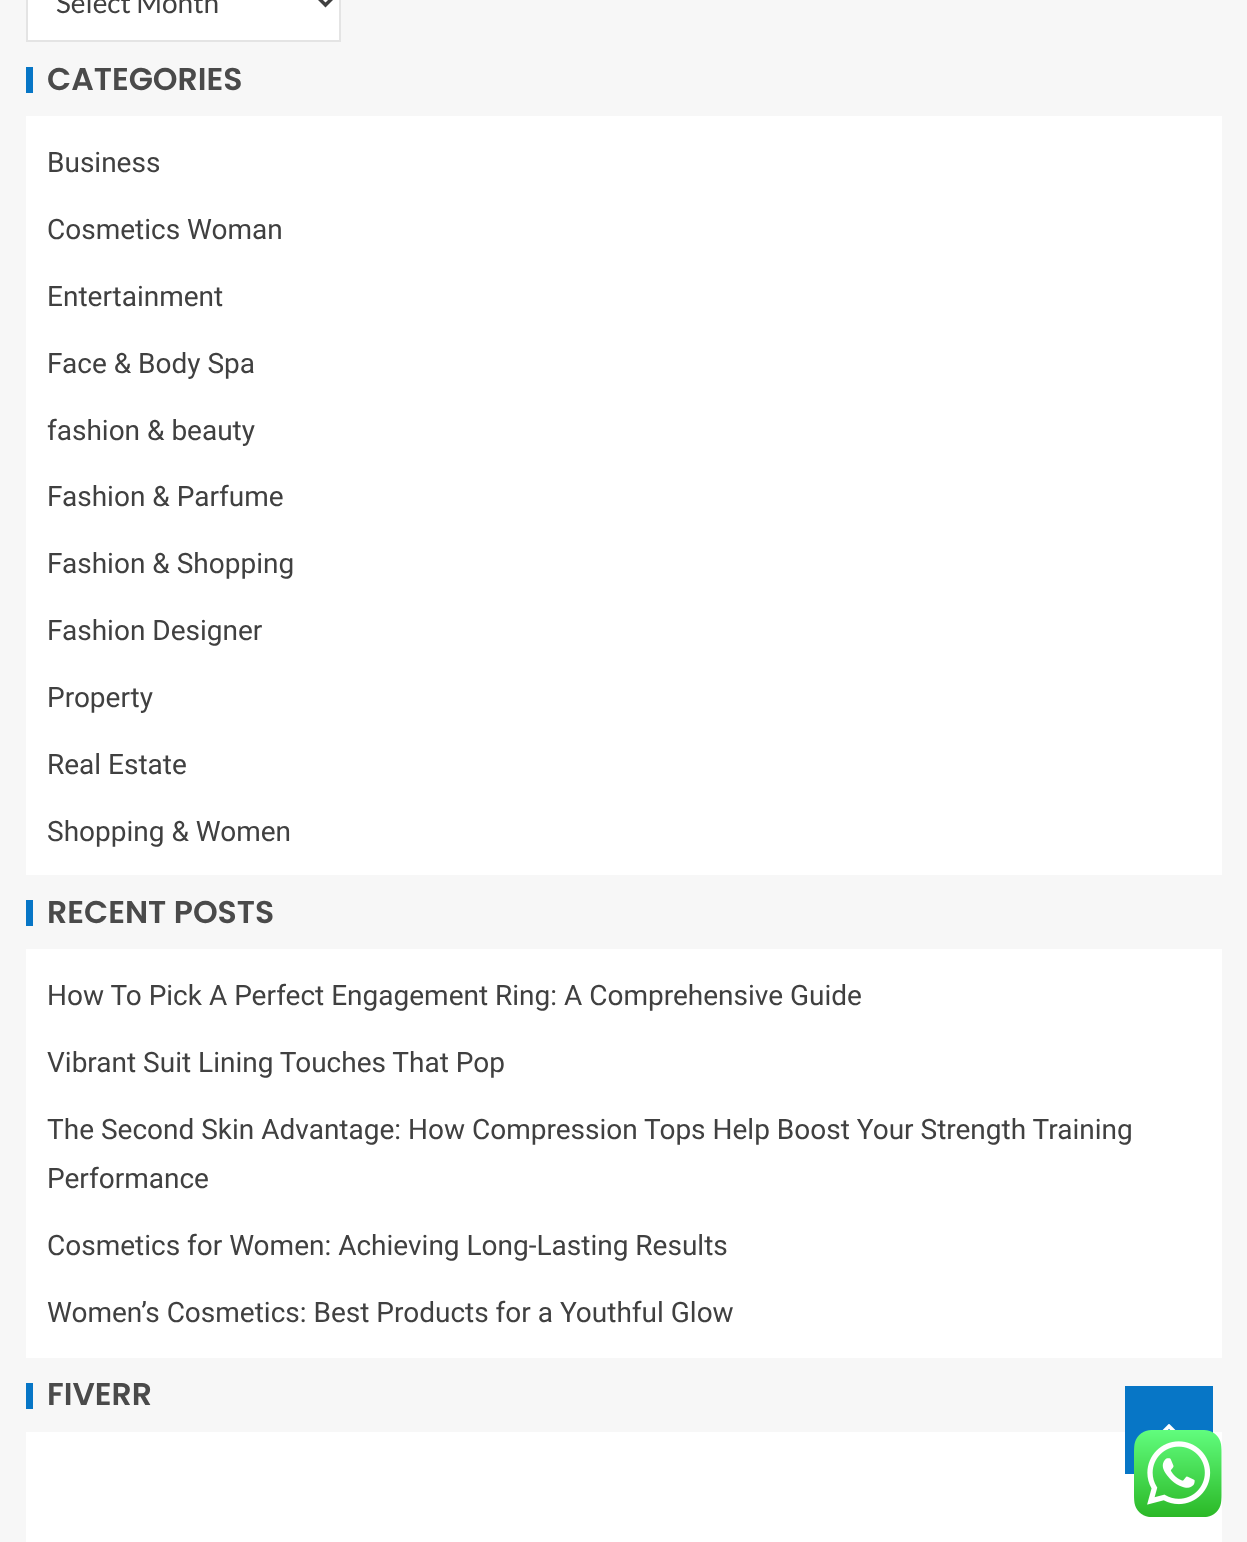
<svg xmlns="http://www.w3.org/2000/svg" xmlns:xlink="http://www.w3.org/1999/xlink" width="1247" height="1542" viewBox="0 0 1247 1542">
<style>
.cls-1{font:28px Lato;fill:#404040}
.cls-2{font:600 31.5px Poppins;fill:#4a4a4a}
.cls-3{font:28px Roboto;fill:#404040}
</style>
<rect width="100%" height="100%" fill="#f7f7f7"/>
<rect fill="#ffffff" stroke="#e4e4e4" stroke-width="2" x="27" y="-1" width="313" height="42"/>
<path fill="none" stroke="#404040" stroke-width="3.5" d="M318.5-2L325.5 5L332.5-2"/>
<rect fill="#0776c6" x="26" y="67" width="7" height="26"/>
<rect fill="#ffffff" x="26" y="116" width="1196" height="759"/>
<rect fill="#0776c6" x="26" y="900" width="7" height="26"/>
<rect fill="#ffffff" x="26" y="949" width="1196" height="409"/>
<rect fill="#0776c6" x="26" y="1383" width="7" height="26"/>
<rect fill="#ffffff" x="26" y="1432" width="1196" height="110"/>
<rect fill="#0776c6" x="1125" y="1386" width="88" height="88"/>
<image xlink:href="image0.png" x="1162" y="1424" width="14" height="6"/>
<image xlink:href="image1.png" x="1134" y="1430" width="88" height="87"/>
<text class="cls-1" x="56" y="13">Select Month</text>
<text class="cls-2" x="47" y="90">CATEGORIES</text>
<text class="cls-3" x="47" y="172">Business</text>
<text class="cls-3" x="47" y="239">Cosmetics Woman</text>
<text class="cls-3" x="47" y="306">Entertainment</text>
<text class="cls-3" x="47" y="373">Face &amp; Body Spa</text>
<text class="cls-3" x="47" y="440">fashion &amp; beauty</text>
<text class="cls-3" x="47" y="506">Fashion &amp; Parfume</text>
<text class="cls-3" x="47" y="573">Fashion &amp; Shopping</text>
<text class="cls-3" x="47" y="640">Fashion Designer</text>
<text class="cls-3" x="47" y="707">Property</text>
<text class="cls-3" x="47" y="774">Real Estate</text>
<text class="cls-3" x="47" y="841">Shopping &amp; Women</text>
<text class="cls-2" x="47" y="923">RECENT POSTS</text>
<text class="cls-3" x="47" y="1005">How To Pick A Perfect Engagement Ring: A Comprehensive Guide</text>
<text class="cls-3" x="47" y="1072">Vibrant Suit Lining Touches That Pop</text>
<text class="cls-3"><tspan x="47" y="1139">The Second Skin Advantage: How Compression Tops Help Boost Your Strength Training</tspan><tspan x="47" y="1188">Performance</tspan></text>
<text class="cls-3" x="47" y="1255">Cosmetics for Women: Achieving Long-Lasting Results</text>
<text class="cls-3" x="47" y="1322">Women’s Cosmetics: Best Products for a Youthful Glow</text>
<text class="cls-2" x="47" y="1405">FIVERR</text>
</svg>
